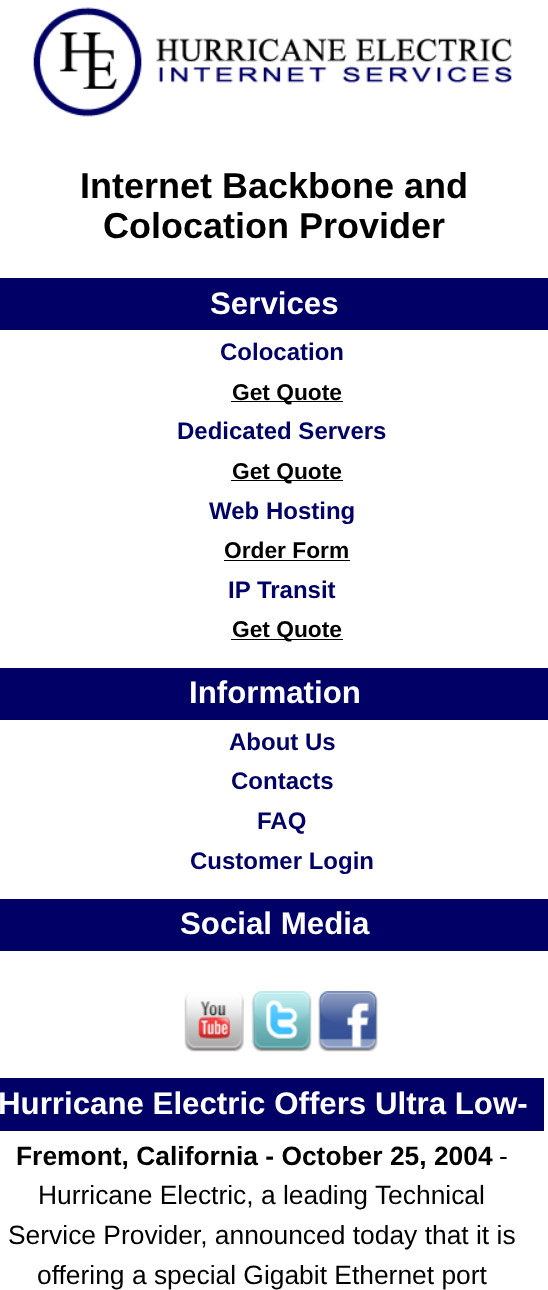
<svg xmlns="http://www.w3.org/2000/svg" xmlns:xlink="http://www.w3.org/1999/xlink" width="548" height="1290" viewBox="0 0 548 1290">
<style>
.cls-1{font:bold 36px Liberation Sans;fill:#000000}
.cls-2{font:bold 31.25px Liberation Sans;fill:#ffffff}
.cls-3{font:bold 24px Liberation Sans;fill:#000066}
.cls-4{font:bold 22.75px Liberation Sans;fill:#000000}
.cls-5{font:bold 26.4px Liberation Sans;fill:#000000}
.cls-6{font:26.4px Liberation Sans;fill:#000000}
</style>
<rect width="100%" height="100%" fill="#ffffff"/>
<image xlink:href="image0.png" x="33" y="7" width="479" height="110"/>
<rect fill="#000066" x="0" y="278" width="548" height="52"/>
<rect fill="#000000" x="231" y="401" width="112" height="1"/>
<rect fill="#000000" x="231" y="480" width="112" height="1"/>
<rect fill="#000000" x="224" y="560" width="126" height="1"/>
<rect fill="#000000" x="231" y="639" width="112" height="1"/>
<rect fill="#000066" x="0" y="668" width="548" height="52"/>
<rect fill="#000066" x="0" y="899" width="548" height="52"/>
<image xlink:href="image1.png" x="184" y="992" width="60" height="60"/>
<image xlink:href="image2.png" x="251" y="991" width="61" height="61"/>
<image xlink:href="image3.png" x="318" y="991" width="60" height="61"/>
<rect fill="#000066" x="0" y="1078" width="544" height="53"/>
<text class="cls-1" x="80" y="198">Internet Backbone and</text>
<text class="cls-1" x="103" y="238">Colocation Provider</text>
<text class="cls-2" x="210" y="314">Services</text>
<text class="cls-3" x="220" y="360">Colocation</text>
<text class="cls-4" x="232" y="400">Get Quote</text>
<text class="cls-3" x="177" y="439">Dedicated Servers</text>
<text class="cls-4" x="232" y="479">Get Quote</text>
<text class="cls-3" x="209" y="519">Web Hosting</text>
<text class="cls-4" x="224" y="558">Order Form</text>
<text class="cls-3" x="228" y="598">IP Transit</text>
<text class="cls-4" x="232" y="637">Get Quote</text>
<text class="cls-2" x="189" y="703">Information</text>
<text class="cls-3" x="229" y="750">About Us</text>
<text class="cls-3" x="231" y="789">Contacts</text>
<text class="cls-3" x="257" y="829">FAQ</text>
<text class="cls-3" x="190" y="869">Customer Login</text>
<text class="cls-2" x="180" y="934">Social Media</text>
<text class="cls-2" x="-2" y="1114">Hurricane Electric Offers Ultra Low-</text>
<text class="cls-5" x="16" y="1165">Fremont, California - October 25, 2004</text>
<text class="cls-6" x="499" y="1165">-</text>
<text class="cls-6" x="38" y="1204">Hurricane Electric, a leading Technical</text>
<text class="cls-6" x="8" y="1244">Service Provider, announced today that it is</text>
<text class="cls-6" x="37" y="1284">offering a special Gigabit Ethernet port</text>
</svg>
